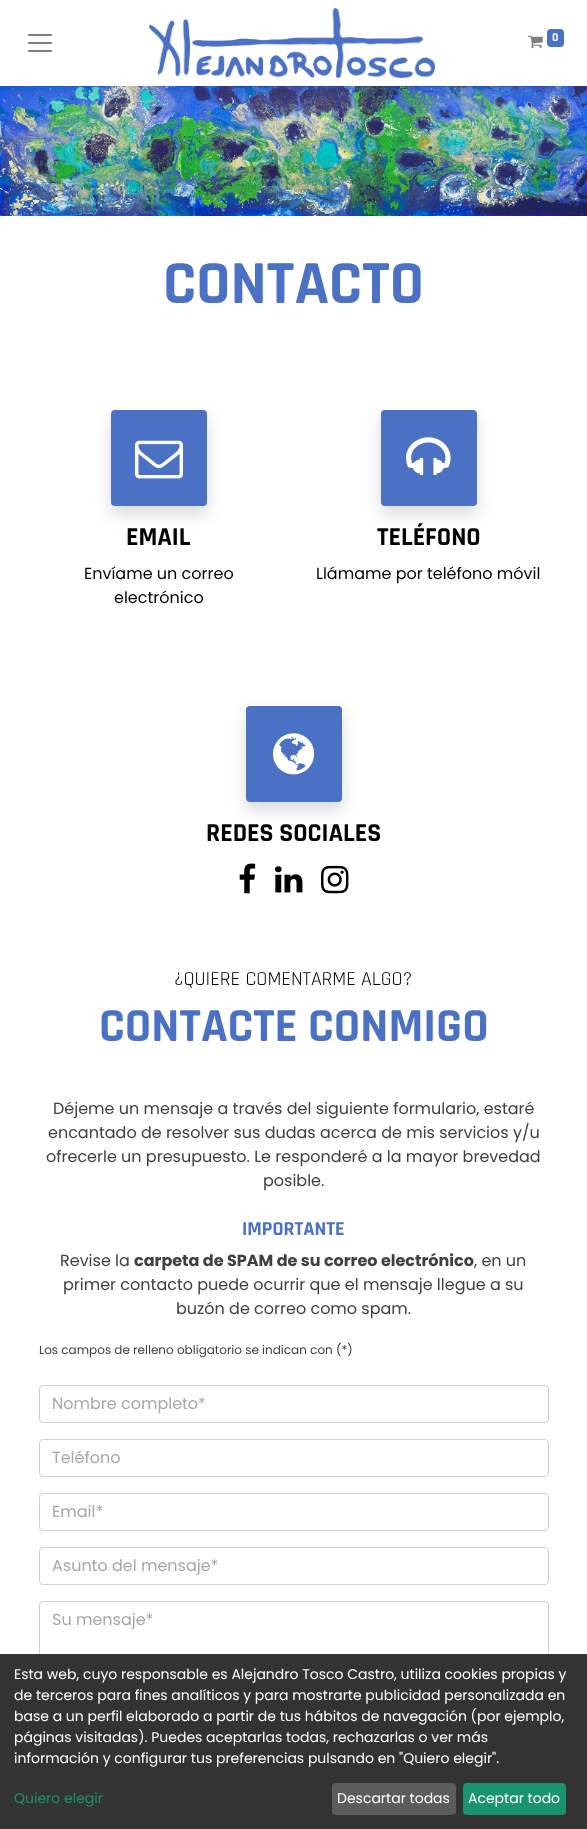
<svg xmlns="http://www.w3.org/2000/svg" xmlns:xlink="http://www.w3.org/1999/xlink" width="587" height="1829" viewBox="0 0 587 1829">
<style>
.cls-1{font:bold 12px Rajdhani;fill:#ffffff}
.cls-2{font:bold 62px Rajdhani;fill:#4b71c4}
.cls-3{font:bold 26px Rajdhani;fill:#000000}
.cls-4{font:16px Poppins;fill:#000000}
.cls-5{font:20px Rajdhani;fill:#000000}
.cls-6{font:bold 48px Rajdhani;fill:#4b71c4}
.cls-7{font:16px Poppins;fill:#404040}
.cls-8{font:bold 20px Rajdhani;fill:#4b71c4}
.cls-9{font:bold 16px Poppins;fill:#404040}
.cls-10{font:12px Poppins;fill:#404040}
.cls-11{font:16px Poppins;fill:#a7a7a7}
.cls-12{font:14px Poppins;fill:#ffffff}
.cls-13{font:14px Poppins;fill:#1a936f}
</style>
<rect width="100%" height="100%" fill="#ffffff"/>
<image xlink:href="image3.png" x="0" y="86" width="587" height="130"/>
<rect fill="#000000" fill-opacity="0.15" filter="blur(8px)" x="0" y="8" width="587" height="86"/>
<rect fill="#ffffff" x="0" y="0" width="587" height="86"/>
<image xlink:href="image0.png" x="28" y="34" width="24" height="18"/>
<image xlink:href="image1.png" x="149" y="8" width="286" height="70"/>
<image xlink:href="image2.png" x="528" y="35" width="15" height="14"/>
<rect fill="#4b71c4" x="547" y="29" width="17" height="18" rx="4"/>
<rect fill="#000000" fill-opacity="0.15" filter="blur(8px)" x="111" y="418" width="96" height="96" rx="4"/>
<rect fill="#4b71c4" x="111" y="410" width="96" height="96" rx="4"/>
<image xlink:href="image4.png" x="135" y="440" width="48" height="39"/>
<rect fill="#000000" fill-opacity="0.15" filter="blur(8px)" x="381" y="418" width="96" height="96" rx="4"/>
<rect fill="#4b71c4" x="381" y="410" width="96" height="96" rx="4"/>
<image xlink:href="image5.png" x="406" y="437" width="45" height="38"/>
<rect fill="#000000" fill-opacity="0.15" filter="blur(8px)" x="246" y="714" width="96" height="96" rx="4"/>
<rect fill="#4b71c4" x="246" y="706" width="96" height="96" rx="4"/>
<image xlink:href="image6.png" x="273" y="733" width="42" height="42"/>
<image xlink:href="image7.png" x="239" y="863" width="17" height="31"/>
<image xlink:href="image8.png" x="275" y="866" width="28" height="27"/>
<image xlink:href="image9.png" x="321" y="865" width="28" height="29"/>
<rect fill="none" stroke="#d1d1d1" x="39.5" y="1385.5" width="509" height="37" rx="3.5"/>
<rect fill="none" stroke="#d1d1d1" x="39.5" y="1439.5" width="509" height="37" rx="3.5"/>
<rect fill="none" stroke="#d1d1d1" x="39.5" y="1493.5" width="509" height="37" rx="3.5"/>
<rect fill="none" stroke="#d1d1d1" x="39.5" y="1547.5" width="509" height="37" rx="3.5"/>
<rect fill="none" stroke="#d1d1d1" x="39.5" y="1601.5" width="509" height="85" rx="3.5"/>
<rect fill="#333333" x="0" y="1654" width="587" height="175"/>
<rect fill="#5c5c5c" x="332" y="1783" width="124" height="32" rx="4"/>
<rect fill="#1a936f" x="463" y="1783" width="103" height="32" rx="4"/>
<text class="cls-1" x="552" y="41">0</text>
<text class="cls-2" x="163" y="303">CONTACTO</text>
<text class="cls-3" x="126" y="545">EMAIL</text>
<text class="cls-4" x="84" y="579">Envíame un correo</text>
<text class="cls-4" x="114" y="603">electrónico</text>
<text class="cls-3" x="377" y="545">TELÉFONO</text>
<text class="cls-4" x="316" y="579">Llámame por teléfono móvil</text>
<text class="cls-3" x="206" y="841">REDES SOCIALES</text>
<text class="cls-5" x="174" y="985">¿QUIERE COMENTARME ALGO?</text>
<text class="cls-6" x="99" y="1041">CONTACTE CONMIGO</text>
<text class="cls-7" x="53" y="1114">Déjeme un mensaje a través del siguiente formulario, estaré</text>
<text class="cls-7" x="48" y="1138">encantado de resolver sus dudas acerca de mis servicios y/u</text>
<text class="cls-7" x="46" y="1162">ofrecerle un presupuesto. Le responderé a la mayor brevedad</text>
<text class="cls-7" x="263" y="1186">posible.</text>
<text class="cls-8" x="242" y="1235">IMPORTANTE</text>
<text class="cls-7" x="60" y="1266">Revise la</text>
<text class="cls-9" x="134" y="1266">carpeta de SPAM de su correo electrónico</text>
<text class="cls-7" x="474" y="1266">, en un</text>
<text class="cls-7" x="63" y="1290">primer contacto puede ocurrir que el mensaje llegue a su</text>
<text class="cls-7" x="176" y="1314">buzón de correo como spam.</text>
<text class="cls-10" x="39" y="1354">Los campos de relleno obligatorio se indican con (*)</text>
<text class="cls-11" x="52" y="1409">Nombre completo*</text>
<text class="cls-11" x="52" y="1463">Teléfono</text>
<text class="cls-11" x="52" y="1517">Email*</text>
<text class="cls-11" x="52" y="1571">Asunto del mensaje*</text>
<text class="cls-11" x="52" y="1625">Su mensaje*</text>
<text class="cls-12"><tspan x="14" y="1679">Esta web, cuyo responsable es Alejandro Tosco Castro, utiliza cookies propias y</tspan><tspan x="14" y="1700">de terceros para fines analíticos y para mostrarte publicidad personalizada en</tspan><tspan x="14" y="1721">base a un perfil elaborado a partir de tus hábitos de navegación (por ejemplo,</tspan><tspan x="14" y="1742">páginas visitadas). Puedes aceptarlas todas, rechazarlas o ver más</tspan><tspan x="14" y="1763">información y configurar tus preferencias pulsando en "Quiero elegir".</tspan></text>
<text class="cls-13" x="14" y="1803">Quiero elegir</text>
<text class="cls-12" x="337" y="1803">Descartar todas</text>
<text class="cls-12" x="468" y="1803">Aceptar todo</text>
</svg>
